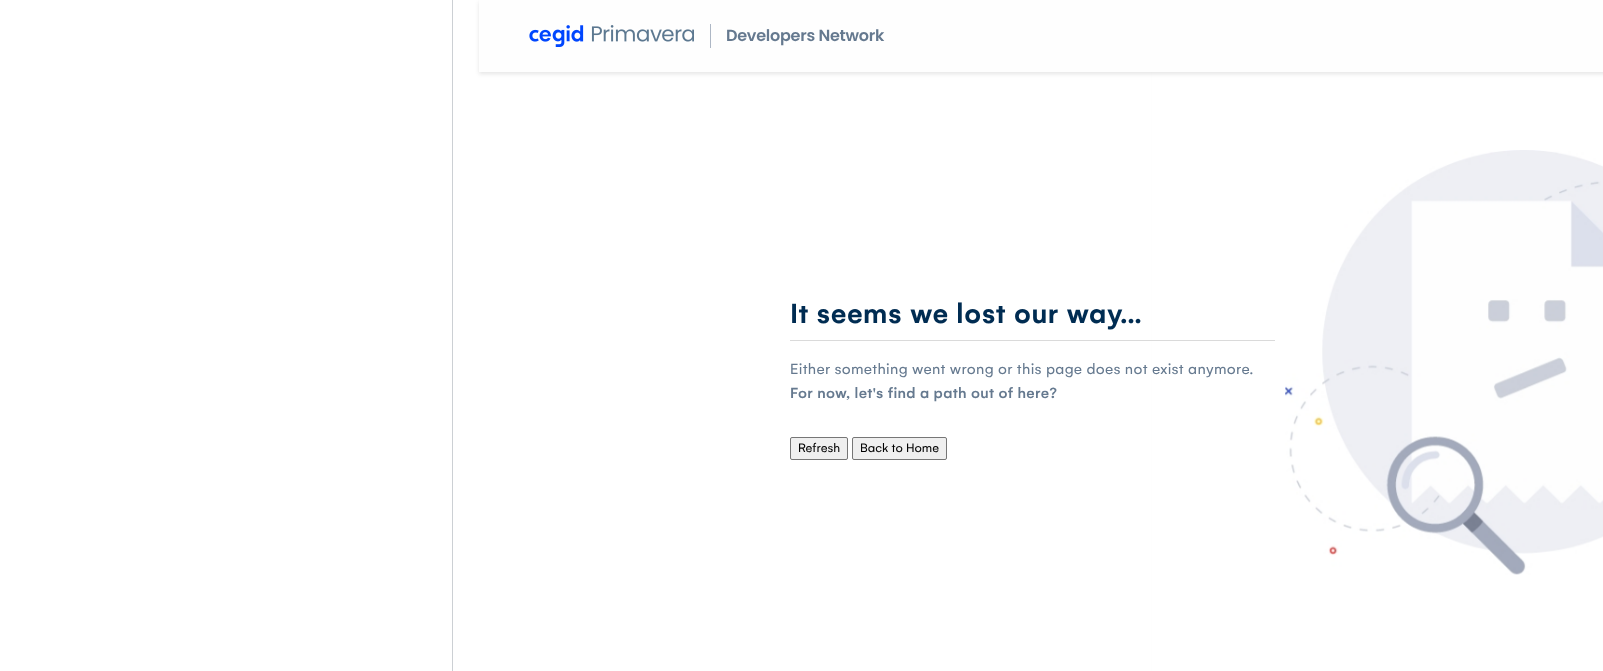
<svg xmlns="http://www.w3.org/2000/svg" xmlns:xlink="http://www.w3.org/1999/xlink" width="1603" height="671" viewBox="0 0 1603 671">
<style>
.cls-1{font:600 16px Poppins;letter-spacing:-0.25px;fill:#65798f}
.cls-2{font:600 30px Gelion;letter-spacing:0.6px;fill:#002c52}
.cls-3{font:16px Gelion;letter-spacing:0.32px;fill:#65798f}
.cls-4{font:500 16px Gelion;letter-spacing:0.32px;fill:#65798f}
.cls-5{font:13.25px Gelion;fill:#000000}
</style>
<rect width="100%" height="100%" fill="#ffffff"/>
<rect fill="none" stroke="#ccd0d4" x="452.5" y="-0.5" width="699" height="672"/>
<rect fill="#fefefe" x="1151" y="72" width="1" height="599"/>
<rect fill="#000000" fill-opacity="0.1" filter="blur(2px)" x="479" y="2" width="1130" height="72"/>
<rect fill="#fefefe" x="479" y="0" width="1124" height="72"/>
<image xlink:href="image0.png" x="529" y="25" width="165" height="22"/>
<rect fill="#adb7c5" x="710" y="24" width="1" height="24"/>
<rect fill="#dadada" x="790" y="340" width="485" height="1"/>
<rect fill="#efefef" stroke="#767676" x="790.5" y="437.5" width="57" height="22" rx="1.5"/>
<rect fill="#efefef" stroke="#767676" x="852.5" y="437.5" width="94" height="22" rx="1.5"/>
<image xlink:href="image1.png" x="1285" y="150" width="318" height="425"/>
<text class="cls-1" x="726" y="41">Developers Network</text>
<text class="cls-2" x="790" y="323">It seems we lost our way...</text>
<text class="cls-3" x="790" y="374">Either something went wrong or this page does not exist anymore.</text>
<text class="cls-4" x="790" y="398">For now, let's find a path out of here?</text>
<text class="cls-5" x="798" y="452">Refresh</text>
<text class="cls-5" x="860" y="452">Back to Home</text>
</svg>
